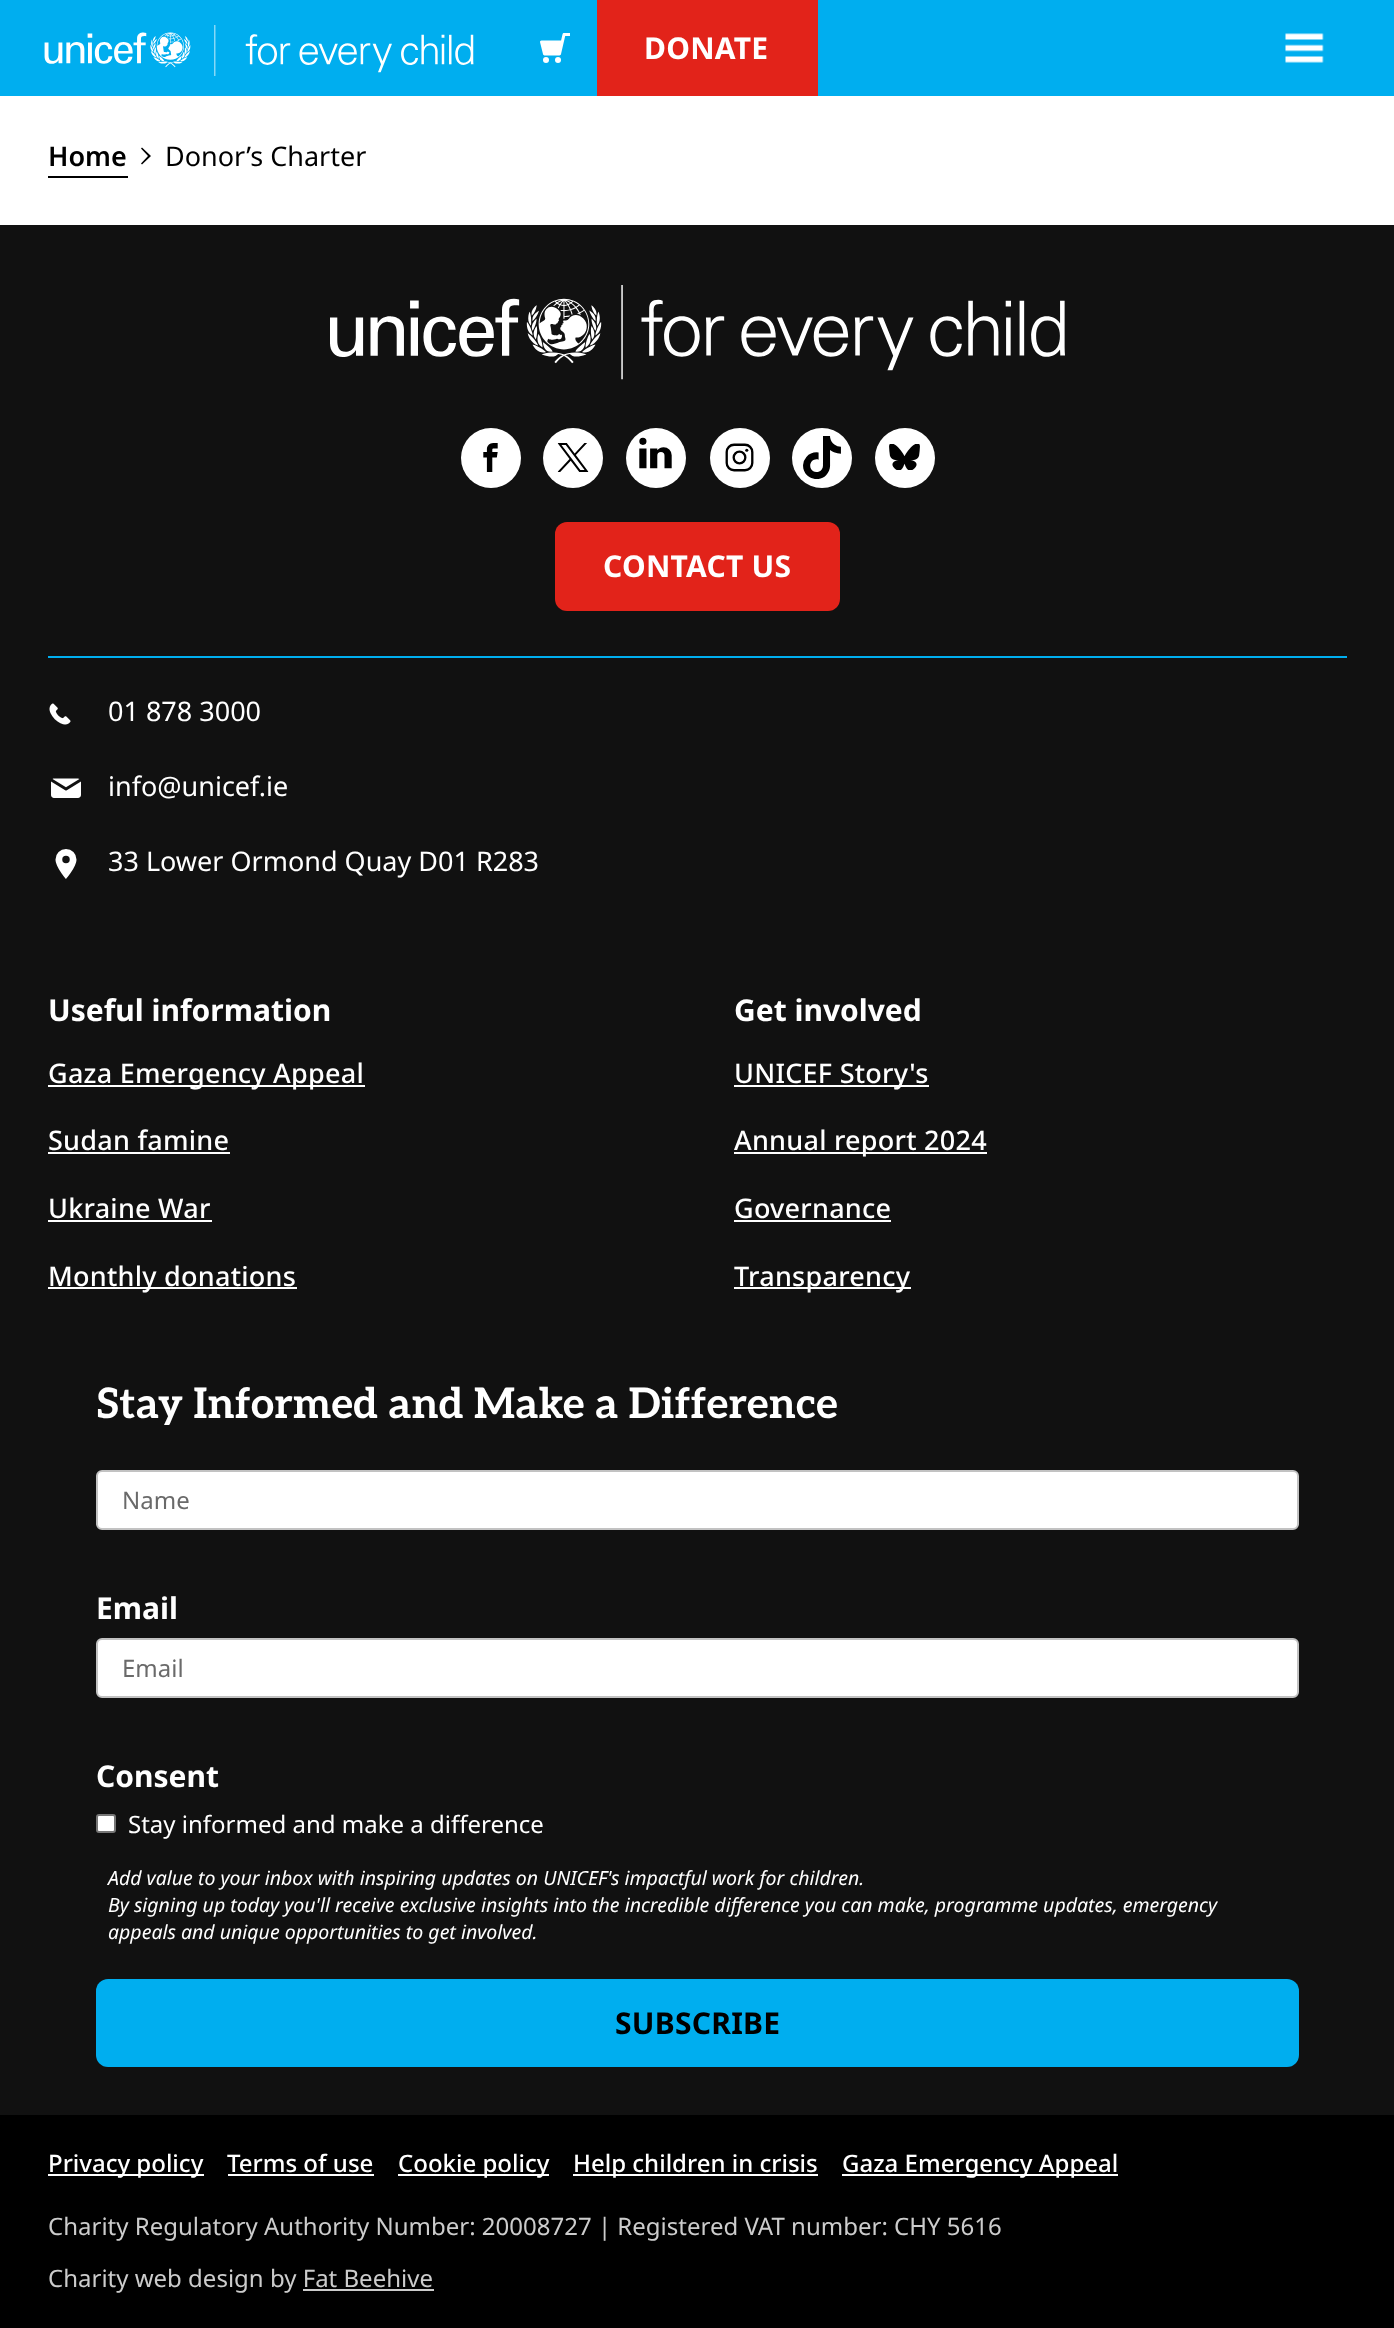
<svg xmlns="http://www.w3.org/2000/svg" xmlns:xlink="http://www.w3.org/1999/xlink" width="1394" height="2328" viewBox="0 0 1394 2328">
<style>
.cls-1{font:bold 30px Noto Sans;letter-spacing:0.25px;fill:#ffffff}
.cls-2{font:600 27px Noto Sans;fill:#000000}
.cls-3{font:27px Noto Sans;fill:#000000}
.cls-4{font:27px Noto Sans;fill:#ffffff}
.cls-5{font:bold 30px Noto Sans;fill:#ffffff}
.cls-6{font:500 27px Noto Sans;letter-spacing:0.25px;fill:#ffffff}
.cls-7{font:bold 42px Aleo;fill:#ffffff}
.cls-8{font:24px Noto Sans;fill:#6a6a6a}
.cls-9{font:24px Noto Sans;fill:#ffffff}
.cls-10{font:italic 19.5px Noto Sans;fill:#ffffff}
.cls-11{font:bold 30px Noto Sans;letter-spacing:0.25px;fill:#000000}
.cls-12{font:500 24px Noto Sans;fill:#ffffff}
.cls-13{font:24px Noto Sans;fill:#cccccc}
</style>
<rect width="100%" height="100%" fill="#ffffff"/>
<rect fill="#00aeef" x="0" y="0" width="1394" height="96"/>
<image xlink:href="image0.png" x="44" y="25" width="430" height="51"/>
<image xlink:href="image1.png" x="540" y="33" width="30" height="30"/>
<rect fill="#e2231a" x="597" y="0" width="221" height="96"/>
<image xlink:href="image2.png" x="1285" y="33" width="39" height="30"/>
<rect fill="#000000" x="48" y="176" width="80" height="2"/>
<path fill="#000000" d="M142 164.5L141 163.5L148 156L141 148.5L142 147.5L151 156Z"/>
<rect fill="#111111" x="0" y="225" width="1394" height="1890"/>
<image xlink:href="image3.png" x="330" y="285" width="735" height="95"/>
<circle fill="#ffffff" cx="491" cy="458" r="30"/>
<image xlink:href="image4.png" x="483" y="443" width="15" height="29"/>
<circle fill="#ffffff" cx="573" cy="458" r="30"/>
<image xlink:href="image5.png" x="557" y="443" width="32" height="29"/>
<circle fill="#ffffff" cx="656" cy="458" r="30"/>
<image xlink:href="image6.png" x="639" y="437" width="33" height="32"/>
<circle fill="#ffffff" cx="740" cy="458" r="30"/>
<image xlink:href="image7.png" x="725" y="443" width="29" height="29"/>
<circle fill="#ffffff" cx="822" cy="458" r="30"/>
<image xlink:href="image8.png" x="803" y="436" width="38" height="43"/>
<circle fill="#ffffff" cx="905" cy="458" r="30"/>
<image xlink:href="image9.png" x="889" y="444" width="31" height="26"/>
<rect fill="#e2231a" x="555" y="522" width="285" height="89" rx="12"/>
<rect fill="#00aeef" x="48" y="656" width="1299" height="2"/>
<image xlink:href="image10.png" x="49" y="703" width="22" height="22"/>
<image xlink:href="image11.png" x="51" y="778" width="30" height="20"/>
<image xlink:href="image12.png" x="55" y="849" width="22" height="30"/>
<rect fill="#ffffff" x="48" y="1085" width="317" height="2"/>
<rect fill="#ffffff" x="48" y="1152" width="182" height="2"/>
<rect fill="#ffffff" x="48" y="1220" width="164" height="2"/>
<rect fill="#ffffff" x="48" y="1287" width="249" height="2"/>
<rect fill="#ffffff" x="734" y="1085" width="195" height="2"/>
<rect fill="#ffffff" x="734" y="1152" width="253" height="2"/>
<rect fill="#ffffff" x="734" y="1220" width="157" height="2"/>
<rect fill="#ffffff" x="734" y="1287" width="177" height="2"/>
<rect fill="#ffffff" stroke="#c2c2c2" stroke-width="2" x="97" y="1471" width="1201" height="58" rx="5"/>
<rect fill="#ffffff" stroke="#c2c2c2" stroke-width="2" x="97" y="1639" width="1201" height="58" rx="5"/>
<rect fill="#ffffff" stroke="#767676" stroke-width="2" x="97" y="1815" width="18" height="17" rx="2"/>
<rect fill="#00aeef" x="96" y="1979" width="1203" height="88" rx="12"/>
<rect fill="#000000" x="0" y="2115" width="1394" height="213"/>
<rect fill="#ffffff" x="48" y="2174" width="156" height="2"/>
<rect fill="#ffffff" x="228" y="2174" width="146" height="2"/>
<rect fill="#ffffff" x="398" y="2174" width="151" height="2"/>
<rect fill="#ffffff" x="573" y="2174" width="245" height="2"/>
<rect fill="#ffffff" x="842" y="2174" width="276" height="2"/>
<rect fill="#cccccc" x="303" y="2289" width="131" height="2"/>
<text class="cls-1" x="644" y="59">DONATE</text>
<text class="cls-2" x="48" y="166">Home</text>
<text class="cls-3" x="165" y="166">Donor’s Charter</text>
<text class="cls-1" x="603" y="577">CONTACT US</text>
<text class="cls-4" x="108" y="721">01 878 3000</text>
<text class="cls-4" x="108" y="796">info@unicef.ie</text>
<text class="cls-4" x="108" y="871">33 Lower Ormond Quay D01 R283</text>
<text class="cls-5" x="48" y="1021">Useful information</text>
<text class="cls-6" x="48" y="1083">Gaza Emergency Appeal</text>
<text class="cls-6" x="48" y="1150">Sudan famine</text>
<text class="cls-6" x="48" y="1218">Ukraine War</text>
<text class="cls-6" x="48" y="1286">Monthly donations</text>
<text class="cls-5" x="734" y="1021">Get involved</text>
<text class="cls-6" x="734" y="1083">UNICEF Story's</text>
<text class="cls-6" x="734" y="1150">Annual report 2024</text>
<text class="cls-6" x="734" y="1218">Governance</text>
<text class="cls-6" x="734" y="1286">Transparency</text>
<text class="cls-7" x="96" y="1418">Stay Informed and Make a Difference</text>
<text class="cls-8" x="122" y="1509">Name</text>
<text class="cls-5" x="96" y="1619">Email</text>
<text class="cls-8" x="122" y="1677">Email</text>
<text class="cls-5" x="96" y="1787">Consent</text>
<text class="cls-9" x="128" y="1833">Stay informed and make a difference</text>
<text class="cls-10"><tspan x="108" y="1885">Add value to your inbox with inspiring updates on UNICEF's impactful work for children.</tspan><tspan x="108" y="1912">By signing up today you'll receive exclusive insights into the incredible difference you can make, programme updates, emergency</tspan><tspan x="108" y="1939">appeals and unique opportunities to get involved.</tspan></text>
<text class="cls-11" x="615" y="2034">SUBSCRIBE</text>
<text class="cls-12" x="48" y="2172">Privacy policy</text>
<text class="cls-12" x="227" y="2172">Terms of use</text>
<text class="cls-12" x="398" y="2172">Cookie policy</text>
<text class="cls-12" x="573" y="2172">Help children in crisis</text>
<text class="cls-12" x="842" y="2172">Gaza Emergency Appeal</text>
<text class="cls-13" x="48" y="2235">Charity Regulatory Authority Number: 20008727 | Registered VAT number: CHY 5616</text>
<text class="cls-13" x="48" y="2287">Charity web design by Fat Beehive</text>
</svg>
